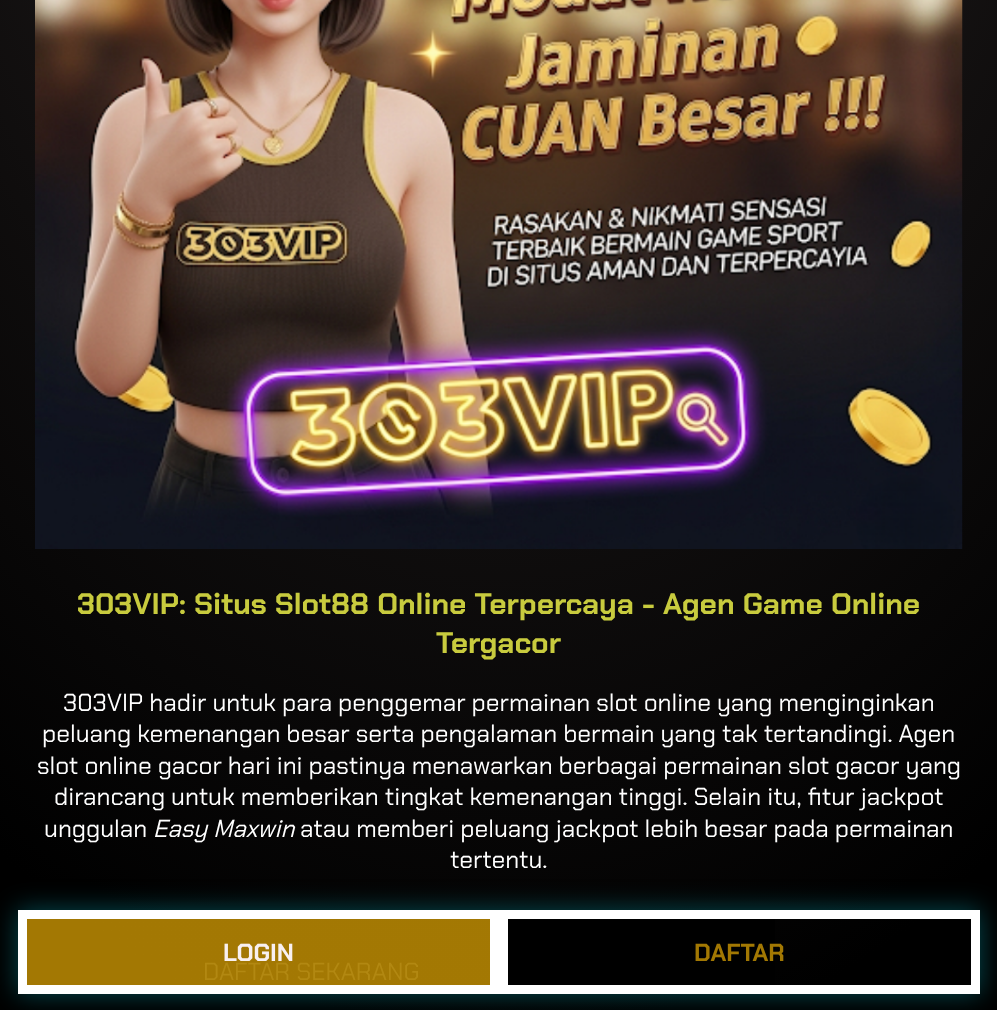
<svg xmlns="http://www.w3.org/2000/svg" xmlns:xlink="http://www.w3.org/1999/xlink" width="997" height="1010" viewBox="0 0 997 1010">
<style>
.cls-1{font:bold 29.75px Chakra Petch;fill:#c8cb3e}
.cls-2{font:24.5px Chakra Petch;fill:#ffffff}
.cls-3{font:italic 24.5px Chakra Petch;fill:#ffffff}
.cls-4{font:24.5px Chakra Petch;fill:#b28812}
.cls-5{font:bold 24.5px Chakra Petch;fill:#f8f0f0}
.cls-6{font:bold 24.5px Chakra Petch;fill:#a27803}
</style>
<defs>
<radialGradient id="g1" gradientUnits="userSpaceOnUse" cx="0" cy="0" r="1" gradientTransform="matrix(998 0 0 1666 499 -590)"><stop offset="0" stop-color="#2e2828"/><stop offset="1" stop-color="#000000"/></radialGradient>
<radialGradient id="g2" gradientUnits="userSpaceOnUse" cx="0" cy="0" r="1" gradientTransform="matrix(998 0 0 1666 499 -590)"><stop offset="0" stop-color="#a57b05"/><stop offset="1" stop-color="#a37803"/></radialGradient>
<clipPath id="clip1"><path d="M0 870H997V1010H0ZM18 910H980V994H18Z" clip-rule="evenodd"/></clipPath>
</defs>
<rect width="100%" height="100%" fill="#ffffff"/>
<rect fill="url(#g1)" x="0" y="0" width="997" height="1010"/>
<rect fill="url(#g2)" x="27" y="919" width="463" height="66"/>
<image xlink:href="image0.png" x="35" y="0" width="928" height="549"/>
<g clip-path="url(#clip1)">
<rect fill="#034a51" filter="blur(13px)" x="18" y="910" width="962" height="84"/>
</g>
<rect fill="none" stroke="#ffffff" stroke-width="9" x="22.5" y="914.5" width="472" height="75"/>
<rect fill="#000000" x="508" y="919" width="267" height="66"/>
<rect fill="none" stroke="#ffffff" stroke-width="9" x="503.5" y="914.5" width="472" height="75"/>
<text class="cls-1" x="77" y="614">303VIP: Situs Slot88 Online Terpercaya - Agen Game Online</text>
<text class="cls-1" x="436" y="653">Tergacor</text>
<text class="cls-2" x="63" y="711">303VIP hadir untuk para penggemar permainan slot online yang menginginkan</text>
<text class="cls-2" x="42" y="742">peluang kemenangan besar serta pengalaman bermain yang tak tertandingi. Agen</text>
<text class="cls-2" x="37" y="774">slot online gacor hari ini pastinya menawarkan berbagai permainan slot gacor yang</text>
<text class="cls-2" x="54" y="805">dirancang untuk memberikan tingkat kemenangan tinggi. Selain itu, fitur jackpot</text>
<text class="cls-2" x="44" y="837">unggulan</text>
<text class="cls-3" x="153" y="837">Easy Maxwin</text>
<text class="cls-2" x="300" y="837">atau memberi peluang jackpot lebih besar pada permainan</text>
<text class="cls-2" x="450" y="868">tertentu.</text>
<text class="cls-4" x="203" y="980">DAFTAR SEKARANG</text>
<text class="cls-5" x="223" y="961">LOGIN</text>
<text class="cls-6" x="694" y="961">DAFTAR</text>
</svg>
